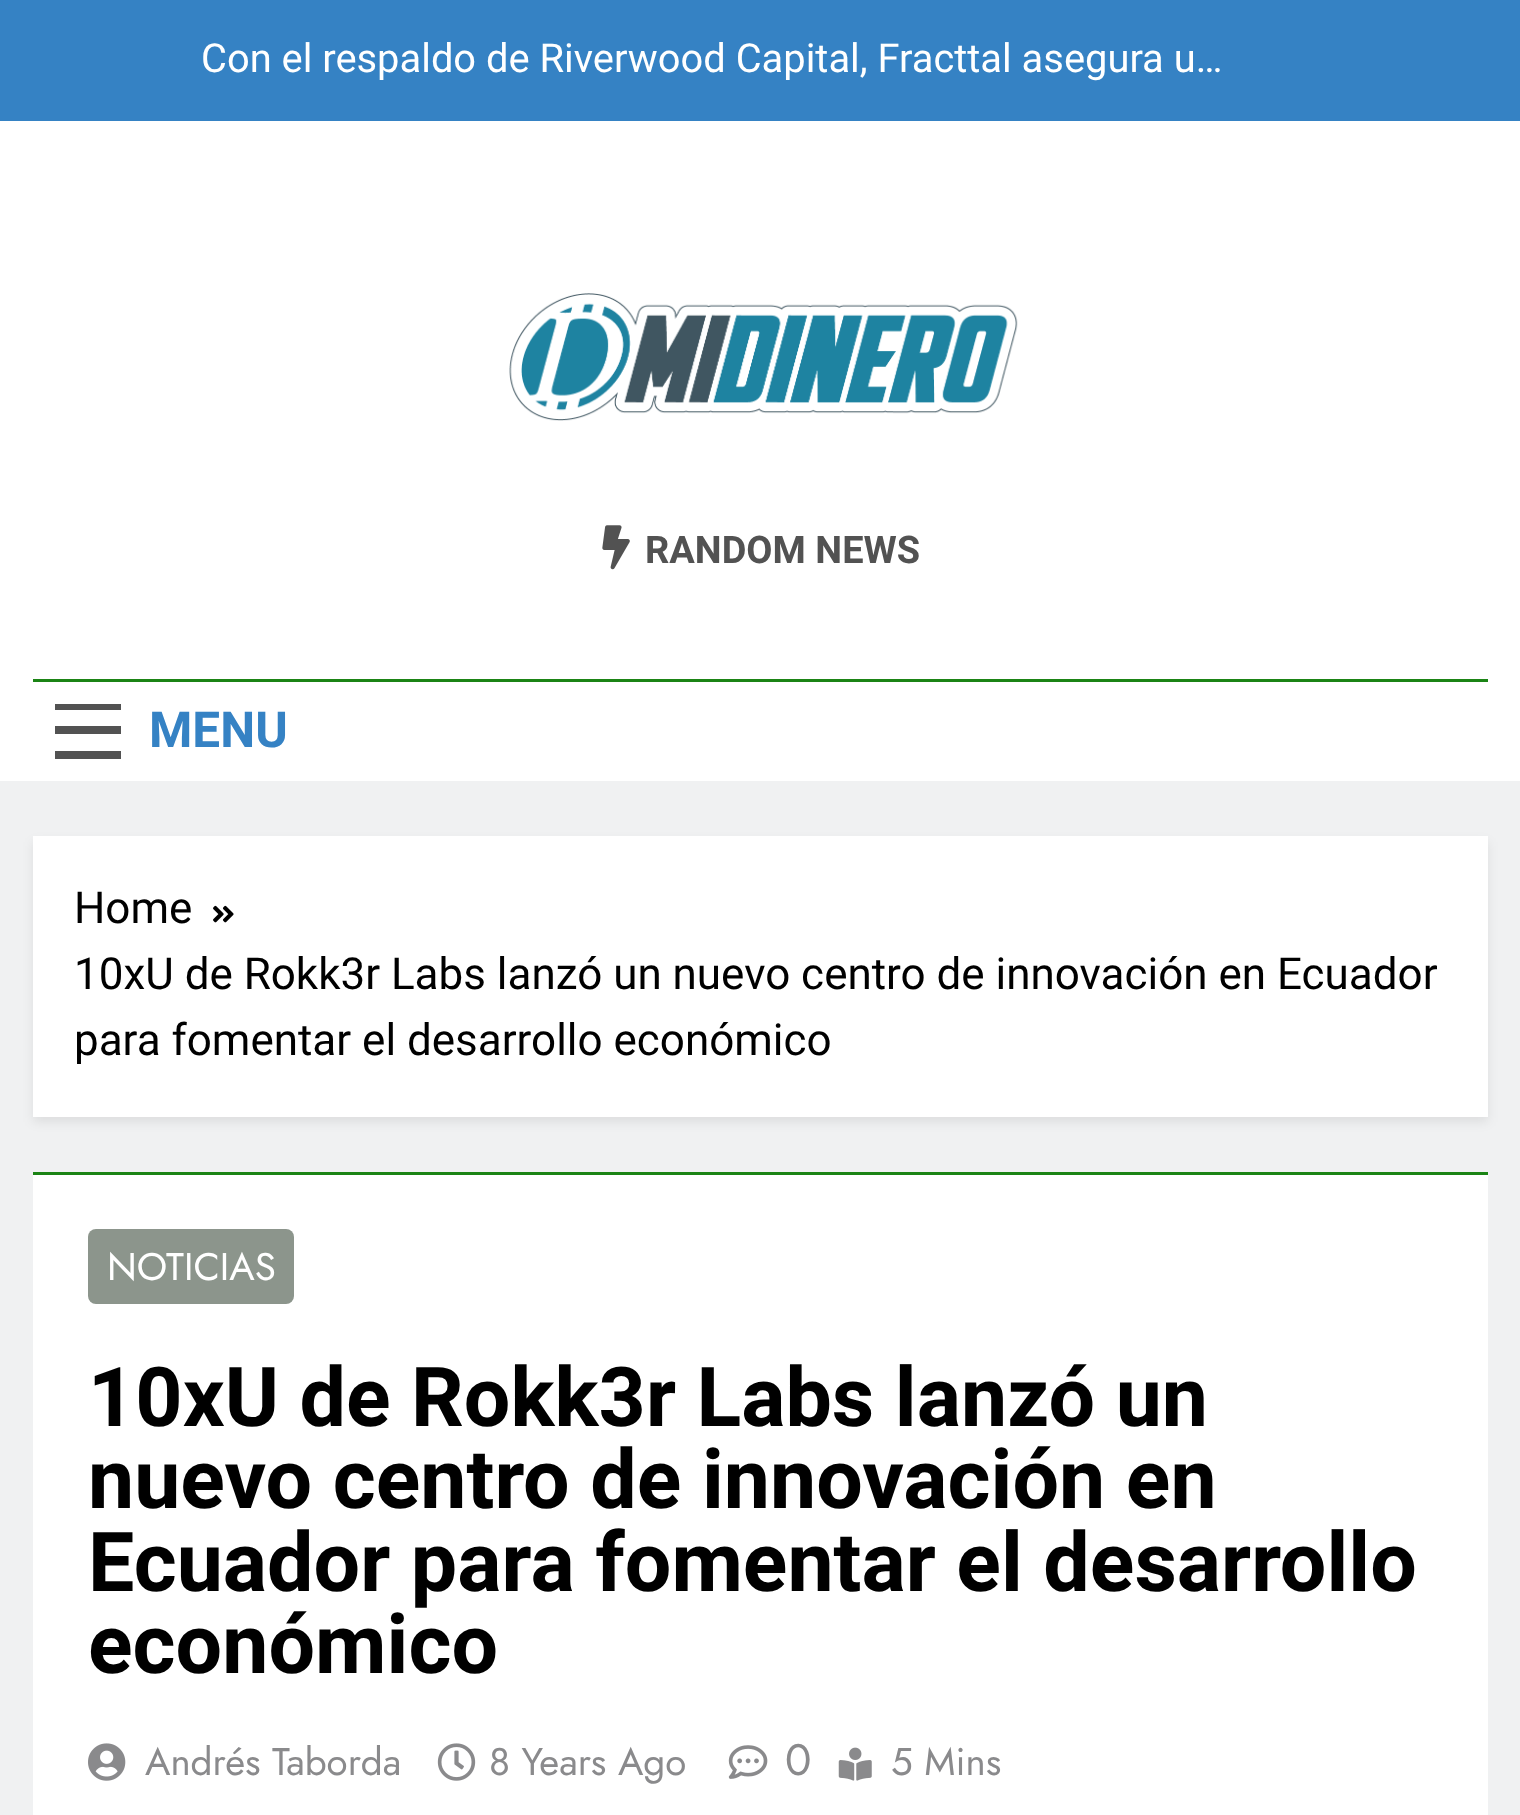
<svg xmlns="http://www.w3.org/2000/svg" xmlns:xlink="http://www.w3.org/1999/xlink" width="1520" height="1815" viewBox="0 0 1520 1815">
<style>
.cls-1{font:39.9px Roboto;fill:#ffffff}
.cls-2{font:bold 38px Roboto;fill:#525252}
.cls-3{font:bold 49.5px Roboto;fill:#3582c4}
.cls-4{font:44px Roboto;fill:#000000}
.cls-5{font:38.5px Jost;fill:#ffffff}
.cls-6{font:bold 82.5px Roboto;fill:#000000}
.cls-7{font:38.5px Jost;fill:#8a8a8c}
.cls-8{font:44px Jost;fill:#8a8a8c}
</style>
<rect width="100%" height="100%" fill="#f0f1f2"/>
<rect fill="#3582c4" x="0" y="0" width="1520" height="121"/>
<rect fill="#ffffff" x="0" y="121" width="1520" height="660"/>
<image xlink:href="image0.png" x="509" y="293" width="509" height="128"/>
<image xlink:href="image1.png" x="602" y="525" width="28" height="45"/>
<rect fill="#1b8415" x="33" y="679" width="1455" height="3"/>
<rect fill="#525252" x="55" y="704" width="66" height="6"/>
<rect fill="#525252" x="55" y="726" width="66" height="8"/>
<rect fill="#525252" x="55" y="751" width="66" height="8"/>
<rect fill="#000000" fill-opacity="0.08" filter="blur(5.5px)" x="33" y="842" width="1455" height="280"/>
<rect fill="#ffffff" x="33" y="836" width="1455" height="281"/>
<image xlink:href="image2.png" x="213" y="905" width="21" height="18"/>
<rect fill="#ffffff" x="33" y="1175" width="1455" height="640"/>
<rect fill="#1b8415" x="33" y="1172" width="1455" height="3"/>
<rect fill="#8c958c" x="88" y="1229" width="206" height="75" rx="8"/>
<image xlink:href="image3.png" x="88" y="1743" width="38" height="38"/>
<image xlink:href="image4.png" x="437" y="1743" width="39" height="38"/>
<image xlink:href="image5.png" x="728" y="1745" width="40" height="34"/>
<image xlink:href="image6.png" x="838" y="1747" width="34" height="34"/>
<text class="cls-1" x="201" y="72">Con el respaldo de Riverwood Capital, Fracttal asegura u…</text>
<text class="cls-2" x="645" y="563">RANDOM NEWS</text>
<text class="cls-3" x="149" y="747">MENU</text>
<text class="cls-4"><tspan x="74" y="923">Home</tspan><tspan x="74" y="989">10xU de Rokk3r Labs lanzó un nuevo centro de innovación en Ecuador</tspan><tspan x="74" y="1055">para fomentar el desarrollo económico</tspan></text>
<text class="cls-5" x="107" y="1280">NOTICIAS</text>
<text class="cls-6"><tspan x="88" y="1426">10xU de Rokk3r Labs lanzó un</tspan><tspan x="88" y="1508">nuevo centro de innovación en</tspan><tspan x="88" y="1591">Ecuador para fomentar el desarrollo</tspan><tspan x="88" y="1673">económico</tspan></text>
<text class="cls-7" x="145" y="1775">Andrés Taborda</text>
<text class="cls-7" x="489" y="1775">8 Years Ago</text>
<text class="cls-8" x="785" y="1775">0</text>
<text class="cls-7" x="891" y="1775">5 Mins</text>
</svg>
